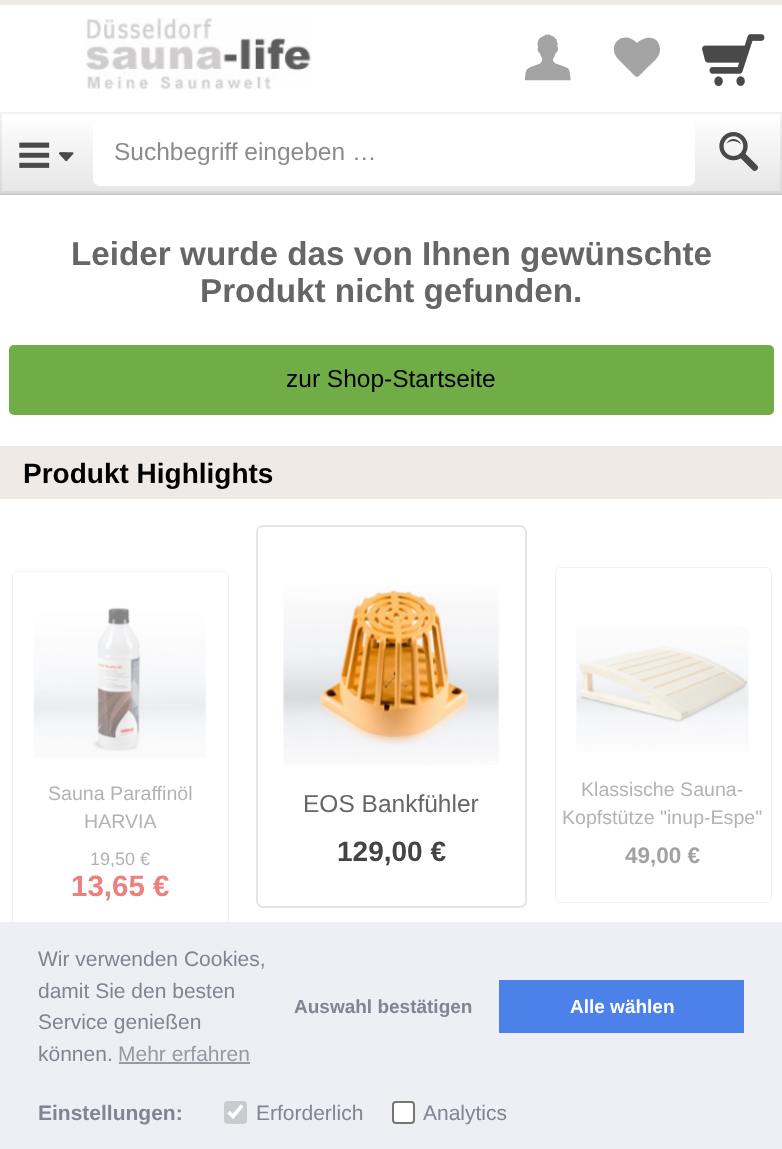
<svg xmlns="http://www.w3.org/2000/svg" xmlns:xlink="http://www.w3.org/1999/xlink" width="782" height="1149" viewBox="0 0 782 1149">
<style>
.cls-1{font:24.5px Liberation Sans;fill:#8c8c8c}
.cls-2{font:bold 33.25px Liberation Sans;fill:#666666}
.cls-3{font:24.5px Liberation Sans;fill:#000000}
.cls-4{font:bold 28px Liberation Sans;fill:#000000}
.cls-5{font:19.6px Liberation Sans;fill:#b3b3b3}
.cls-6{font:18px Liberation Sans;fill:#b3b3b3}
.cls-7{font:bold 29.5px Liberation Sans;fill:#ea8080}
.cls-8{font:24.5px Liberation Sans;fill:#666666}
.cls-9{font:bold 28px Liberation Sans;fill:#444444}
.cls-10{font:bold 22.5px Liberation Sans;fill:#a2a2a2}
.cls-11{font:21px Liberation Sans;fill:#838391}
.cls-12{font:21px Liberation Sans;fill:#9899a5}
.cls-13{font:bold 19px Liberation Sans;fill:#838391}
.cls-14{font:bold 19px Liberation Sans;fill:#ffffff}
.cls-15{font:bold 21px Liberation Sans;fill:#838391}
</style>
<defs>
<linearGradient id="g1" gradientUnits="userSpaceOnUse" x1="391" y1="112" x2="391" y2="193"><stop offset="0" stop-color="#ffffff"/><stop offset="1" stop-color="#e6e6e6"/></linearGradient>
</defs>
<rect width="100%" height="100%" fill="#ffffff"/>
<rect fill="#c9c9c9" x="0" y="193" width="782" height="2"/>
<rect fill="#efeae5" x="0" y="0" width="782" height="5"/>
<image xlink:href="image0.png" x="85" y="18" width="227" height="72"/>
<image xlink:href="image1.png" x="524" y="34" width="47" height="47"/>
<path fill="#a4a4a4" d="M660 50C660 57 653 62 649 66L641 74C637 78 637 78 633 74L618 59C606 45 623 29 637 43C645 35 660 35 660 50Z"/>
<image xlink:href="image2.png" x="702" y="34" width="63" height="53"/>
<rect fill="url(#g1)" x="0" y="120" width="782" height="73"/>
<rect fill="none" stroke="#000000" stroke-opacity="0.05" stroke-width="2" x="1" y="113" width="780" height="79"/>
<image xlink:href="image3.png" x="19" y="142" width="55" height="26"/>
<rect fill="#ffffff" x="93" y="119" width="602" height="67" rx="7"/>
<image xlink:href="image4.png" x="719" y="132" width="40" height="39"/>
<rect fill="#70ad47" x="9" y="345" width="765" height="70" rx="5"/>
<rect fill="#efeae5" x="0" y="446" width="782" height="53"/>
<rect fill="none" stroke="#f3f3f3" x="12.5" y="571.5" width="216" height="361" rx="4.5"/>
<image xlink:href="image5.png" x="33" y="607" width="173" height="151"/>
<rect fill="none" stroke="#e6e6e6" stroke-width="2" x="257" y="526" width="269" height="381" rx="6"/>
<image xlink:href="image6.png" x="283" y="585" width="217" height="180"/>
<rect fill="none" stroke="#f3f3f3" x="555.5" y="567.5" width="216" height="335" rx="4.5"/>
<image xlink:href="image7.png" x="576" y="627" width="173" height="125"/>
<rect fill="#edeff5" x="0" y="922" width="782" height="227"/>
<rect fill="#9899a5" x="119" y="1062" width="131" height="2"/>
<rect fill="#4b81e8" x="499" y="980" width="245" height="53"/>
<rect fill="#c9cbcf" x="224" y="1101" width="23" height="23" rx="4"/>
<path fill="none" stroke="#ffffff" stroke-width="3.6" d="M228.5 1112L233 1116.5L242 1105.5"/>
<rect fill="#ffffff" stroke="#767676" stroke-width="2" x="393" y="1102" width="21" height="21" rx="3"/>
<text class="cls-1" x="114" y="160">Suchbegriff eingeben …</text>
<text class="cls-2" x="71" y="265">Leider wurde das von Ihnen gewünschte</text>
<text class="cls-2" x="200" y="302">Produkt nicht gefunden.</text>
<text class="cls-3" x="286" y="387">zur Shop-Startseite</text>
<text class="cls-4" x="23" y="483">Produkt Highlights</text>
<text class="cls-5" x="48" y="800">Sauna Paraffinöl</text>
<text class="cls-5" x="84" y="828">HARVIA</text>
<text class="cls-6" x="90" y="865">19,50 €</text>
<text class="cls-7" x="71" y="896">13,65 €</text>
<text class="cls-8" x="303" y="812">EOS Bankfühler</text>
<text class="cls-9" x="337" y="861">129,00 €</text>
<text class="cls-5" x="581" y="796">Klassische Sauna-</text>
<text class="cls-5" x="562" y="824">Kopfstütze "inup-Espe"</text>
<text class="cls-10" x="625" y="863">49,00 €</text>
<text class="cls-11"><tspan x="38" y="966">Wir verwenden Cookies,</tspan><tspan x="38" y="998">damit Sie den besten</tspan><tspan x="38" y="1029">Service genießen</tspan><tspan x="38" y="1061">können.</tspan></text>
<text class="cls-12" x="118" y="1061">Mehr erfahren</text>
<text class="cls-13" x="294" y="1013">Auswahl bestätigen</text>
<text class="cls-14" x="570" y="1013">Alle wählen</text>
<text class="cls-15" x="38" y="1120">Einstellungen:</text>
<text class="cls-11" x="256" y="1120">Erforderlich</text>
<text class="cls-11" x="423" y="1120">Analytics</text>
</svg>
